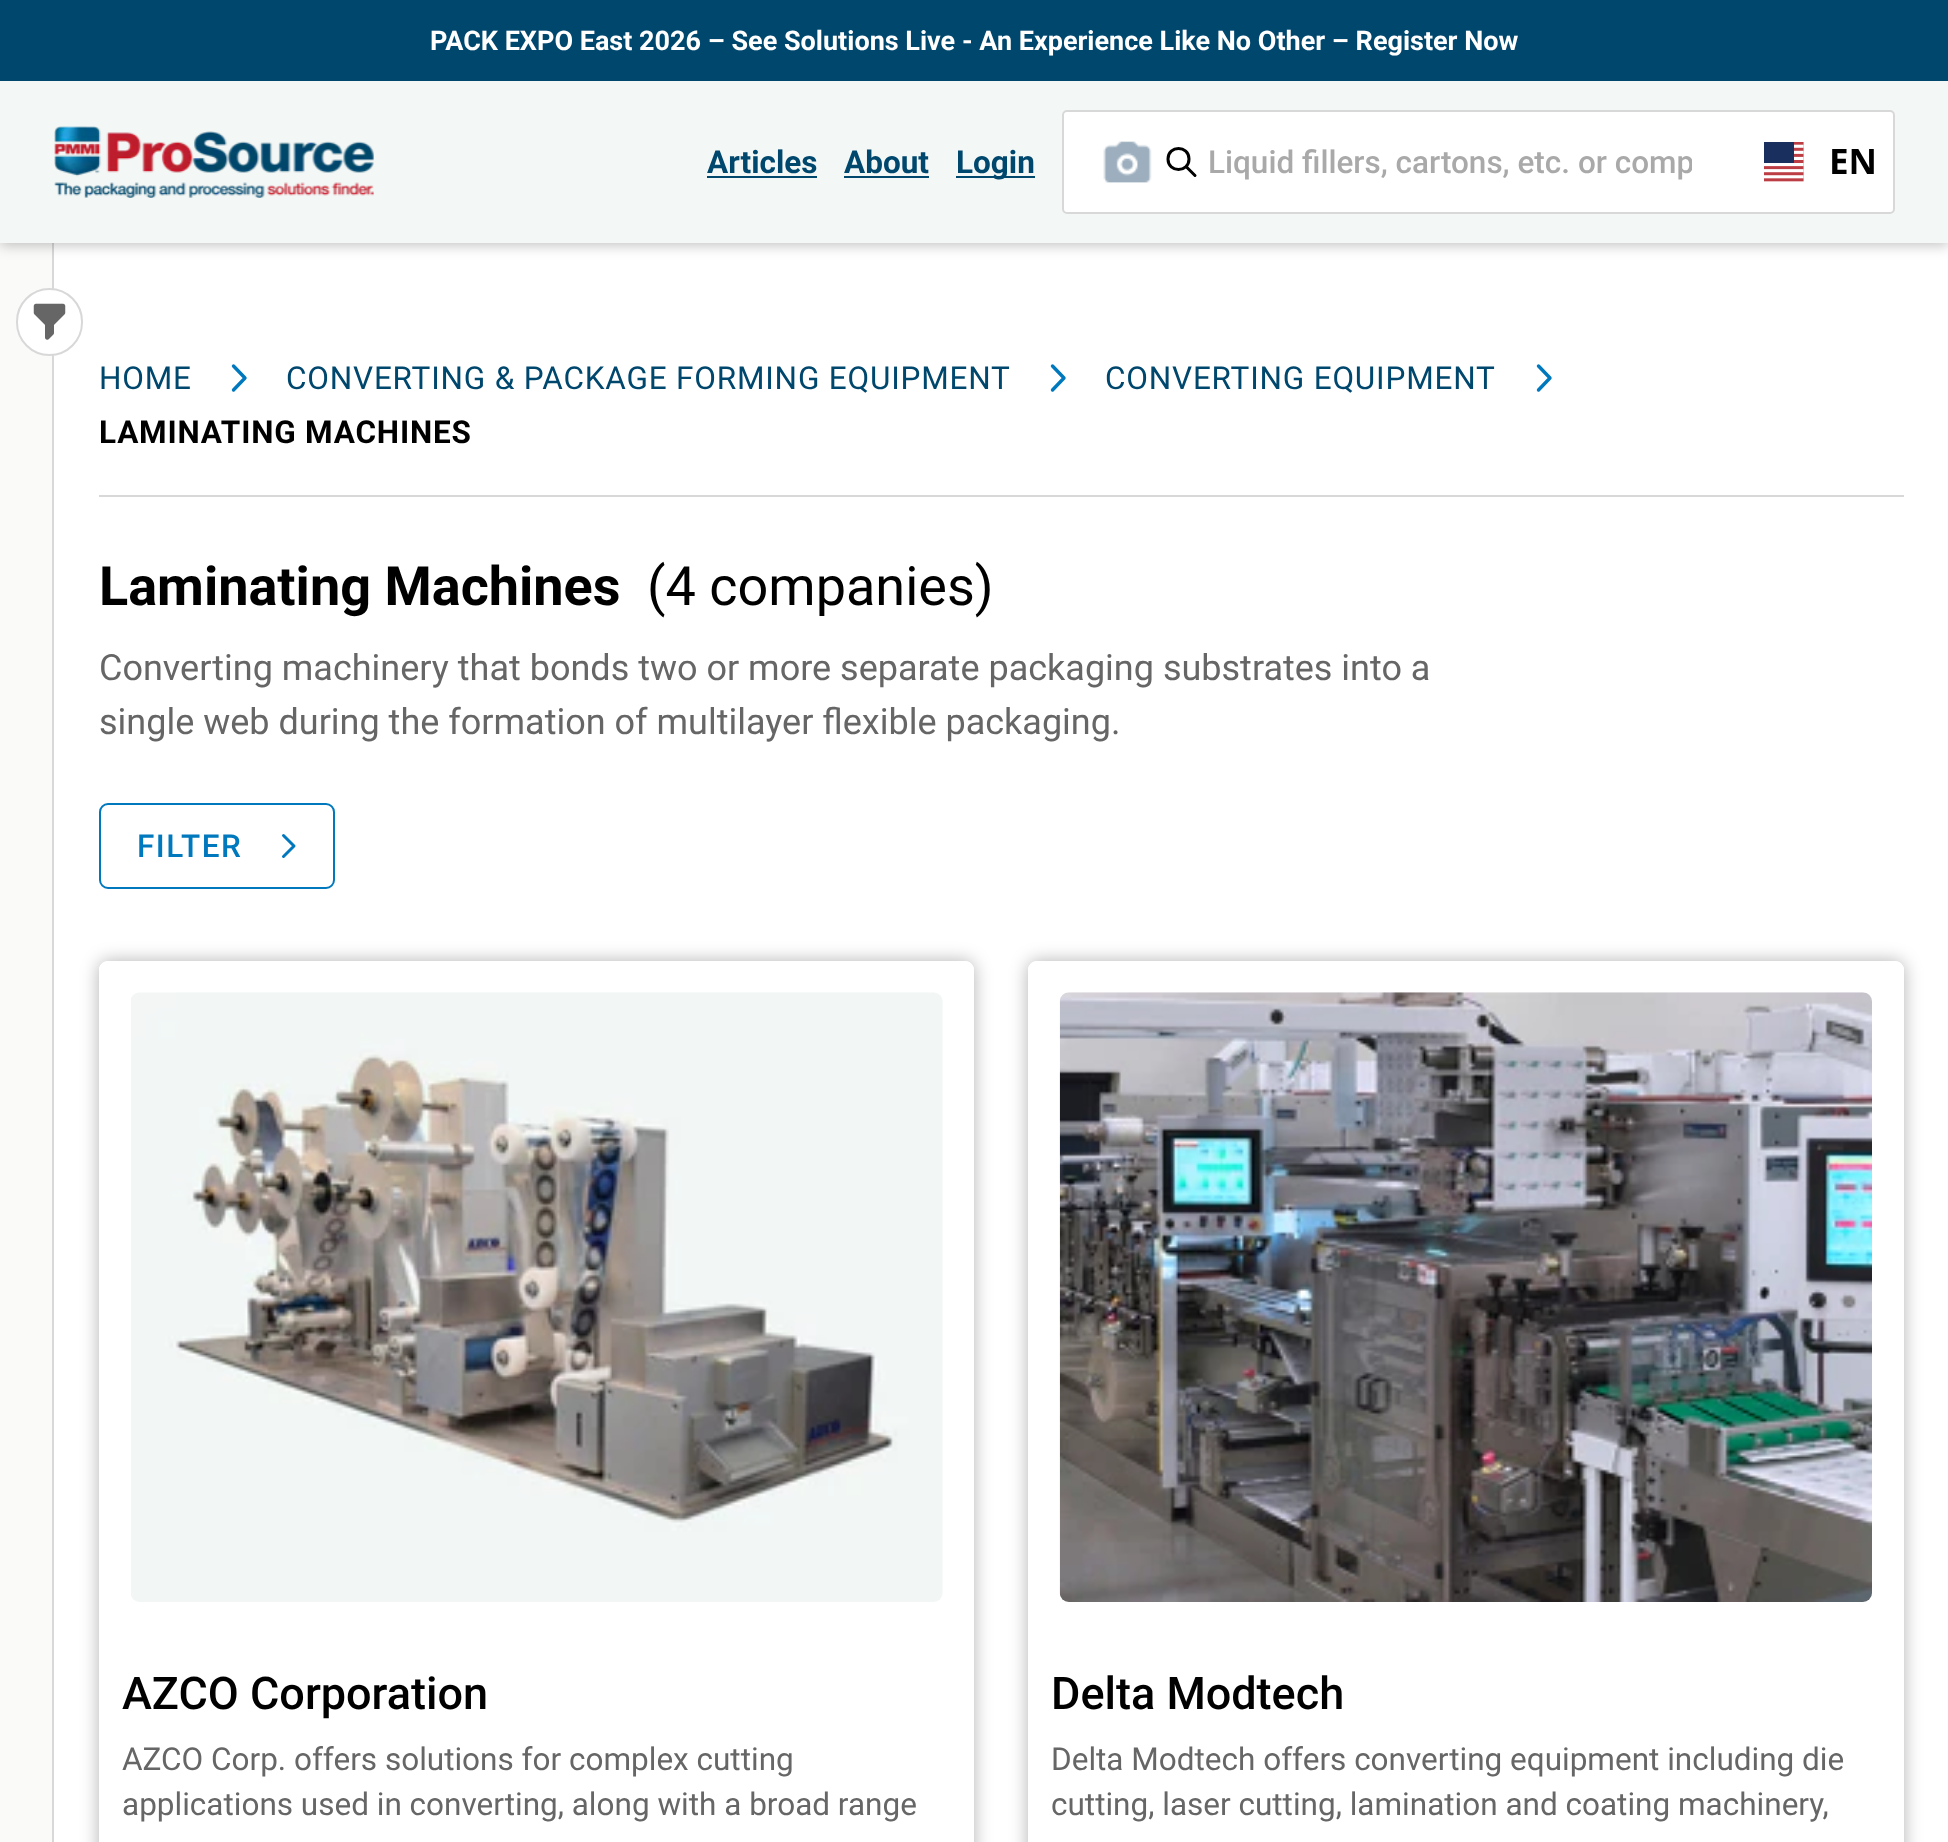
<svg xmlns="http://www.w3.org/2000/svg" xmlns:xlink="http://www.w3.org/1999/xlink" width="1948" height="1842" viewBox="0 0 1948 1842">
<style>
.cls-1{font:bold 27px Roboto;fill:#ffffff}
.cls-2{font:bold 31.5px Roboto;fill:#00476e}
.cls-3{font:500 31.5px Roboto;fill:#a9a9a9}
.cls-4{font:bold 35px Noto Sans;fill:#000000}
.cls-5{font:31.5px Roboto;letter-spacing:0.8px;fill:#00476e}
.cls-6{font:bold 31.5px Roboto;letter-spacing:0.8px;fill:#000000}
.cls-7{font:bold 54px Roboto;fill:#000000}
.cls-8{font:54px Roboto;fill:#000000}
.cls-9{font:36px Roboto;fill:#666666}
.cls-10{font:500 31.5px Roboto;letter-spacing:1.5px;fill:#0078bd}
.cls-11{font:500 45px Roboto;fill:#000000}
.cls-12{font:31.5px Roboto;fill:#666666}
</style>
<defs>
<clipPath id="clip1"><path d="M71 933H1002V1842H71ZM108 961H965C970 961 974 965 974 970V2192C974 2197 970 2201 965 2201H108C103 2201 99 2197 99 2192V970C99 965 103 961 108 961Z" clip-rule="evenodd"/></clipPath>
<clipPath id="clip2"><path d="M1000 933H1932V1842H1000ZM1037 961H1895C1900 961 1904 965 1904 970V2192C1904 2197 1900 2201 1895 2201H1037C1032 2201 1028 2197 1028 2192V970C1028 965 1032 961 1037 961Z" clip-rule="evenodd"/></clipPath>
<clipPath id="clip3"><rect x="1208" y="144" width="484" height="36"/></clipPath>
</defs>
<rect width="100%" height="100%" fill="#ffffff"/>
<rect fill="#fafaf9" x="0" y="243" width="52" height="1599"/>
<rect fill="#d8d8d8" x="52" y="243" width="2" height="1599"/>
<rect fill="#000000" fill-opacity="0.25" filter="blur(7px)" x="0" y="83" width="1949" height="162"/>
<rect fill="#00476e" x="0" y="0" width="1948" height="81"/>
<rect fill="#f3f7f5" x="0" y="81" width="1948" height="162"/>
<image xlink:href="image0.png" x="54" y="126" width="320" height="72"/>
<rect fill="#00476e" x="707" y="176" width="110" height="2"/>
<rect fill="#00476e" x="844" y="176" width="85" height="2"/>
<rect fill="#00476e" x="956" y="176" width="79" height="2"/>
<rect fill="#ffffff" stroke="#d8d8d8" stroke-width="2" x="1063" y="111" width="831" height="102" rx="4"/>
<image xlink:href="image1.png" x="1103" y="141" width="49" height="42"/>
<path fill="none" stroke="#000000" stroke-width="3" stroke-linecap="round" stroke-linejoin="round" d="M1195 175.5L1186 166.5M1189 159C1189 173 1168 173 1168 159C1168 145 1189 145 1189 159Z"/>
<image xlink:href="image2.png" x="1764" y="142" width="40" height="40"/>
<rect fill="#ffffff" stroke="#d8d8d8" stroke-width="2" x="17" y="289" width="65" height="66" rx="32.5"/>
<image xlink:href="image3.png" x="33" y="303" width="33" height="37"/>
<rect fill="#d8d8d8" x="99" y="495" width="1805" height="2"/>
<path fill="none" stroke="#0078bd" stroke-width="3.4" stroke-linecap="round" stroke-linejoin="round" d="M233.5 366L245 378L233.5 390"/>
<path fill="none" stroke="#0078bd" stroke-width="3.4" stroke-linecap="round" stroke-linejoin="round" d="M1052.5 366L1064 378L1052.5 390"/>
<path fill="none" stroke="#0078bd" stroke-width="3.4" stroke-linecap="round" stroke-linejoin="round" d="M1538.5 366L1550 378L1538.5 390"/>
<rect fill="none" stroke="#0078bd" stroke-width="2" x="100" y="804" width="234" height="84" rx="8"/>
<path fill="none" stroke="#0078bd" stroke-width="3" stroke-linecap="round" stroke-linejoin="round" d="M283.5 835.5L294 846L283.5 856.5"/>
<g clip-path="url(#clip1)">
<rect fill="#000000" fill-opacity="0.3" filter="blur(9px)" x="99" y="961" width="875" height="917" rx="9"/>
</g>
<rect fill="none" stroke="#ffffff" stroke-width="5" x="101.5" y="963.5" width="870" height="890" rx="6.5"/>
<image xlink:href="image4.png" x="131" y="992" width="812" height="610"/>
<g clip-path="url(#clip2)">
<rect fill="#000000" fill-opacity="0.3" filter="blur(9px)" x="1028" y="961" width="876" height="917" rx="9"/>
</g>
<rect fill="none" stroke="#ffffff" stroke-width="5" x="1030.5" y="963.5" width="871" height="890" rx="6.5"/>
<image xlink:href="image5.png" x="1059" y="992" width="813" height="610"/>
<text class="cls-1" x="430" y="50">PACK EXPO East 2026 – See Solutions Live - An Experience Like No Other – Register Now</text>
<text class="cls-2" x="707" y="173">Articles</text>
<text class="cls-2" x="844" y="173">About</text>
<text class="cls-2" x="956" y="173">Login</text>
<g clip-path="url(#clip3)">
<text class="cls-3" x="1208" y="173">Liquid fillers, cartons, etc. or comp</text>
</g>
<text class="cls-4" x="1829" y="174">EN</text>
<text class="cls-5" x="99" y="389">HOME</text>
<text class="cls-5" x="286" y="389">CONVERTING &amp; PACKAGE FORMING EQUIPMENT</text>
<text class="cls-5" x="1105" y="389">CONVERTING EQUIPMENT</text>
<text class="cls-6" x="99" y="443">LAMINATING MACHINES</text>
<text class="cls-7" x="99" y="605">Laminating Machines</text>
<text class="cls-8" x="647" y="605">(4 companies)</text>
<text class="cls-9"><tspan x="99" y="680">Converting machinery that bonds two or more separate packaging substrates into a</tspan><tspan x="99" y="734">single web during the formation of multilayer flexible packaging.</tspan></text>
<text class="cls-10" x="137" y="857">FILTER</text>
<text class="cls-11" x="122" y="1709">AZCO Corporation</text>
<text class="cls-12"><tspan x="122" y="1770">AZCO Corp. offers solutions for complex cutting</tspan><tspan x="122" y="1815">applications used in converting, along with a broad range</tspan></text>
<text class="cls-11" x="1051" y="1709">Delta Modtech</text>
<text class="cls-12"><tspan x="1051" y="1770">Delta Modtech offers converting equipment including die</tspan><tspan x="1051" y="1815">cutting, laser cutting, lamination and coating machinery,</tspan></text>
</svg>
